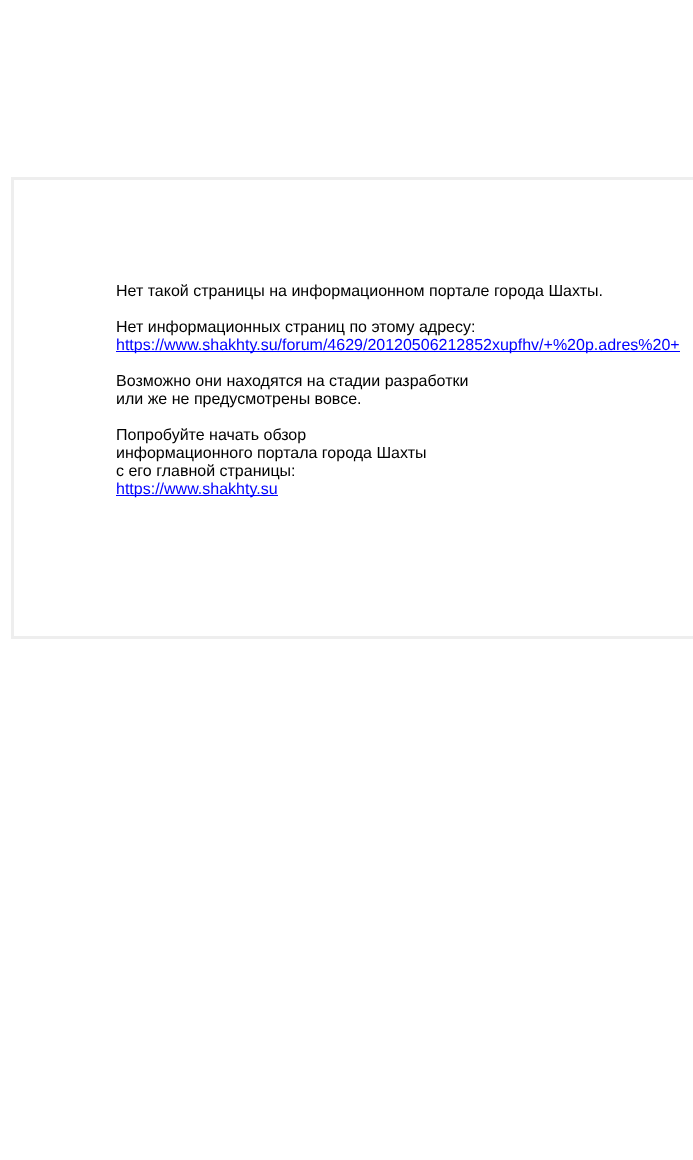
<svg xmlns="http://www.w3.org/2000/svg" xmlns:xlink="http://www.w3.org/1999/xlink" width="693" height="1160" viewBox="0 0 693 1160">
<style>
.cls-1{font:16px Liberation Sans;fill:#000000}
.cls-2{font:16px Liberation Sans;fill:#0000ff}
</style>
<rect width="100%" height="100%" fill="#ffffff"/>
<rect fill="none" stroke="#eeeeee" stroke-width="3" x="12.5" y="178.5" width="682" height="459"/>
<rect fill="#0000ff" x="116" y="351" width="564" height="1"/>
<rect fill="#0000ff" x="116" y="495" width="162" height="1"/>
<text class="cls-1" x="116" y="296">Нет такой страницы на информационном портале города Шахты.</text>
<text class="cls-1" x="116" y="332">Нет информационных страниц по этому адресу:</text>
<text class="cls-2" x="116" y="350">https://www.shakhty.su/forum/4629/20120506212852xupfhv/+%20p.adres%20+</text>
<text class="cls-1"><tspan x="116" y="386">Возможно они находятся на стадии разработки</tspan><tspan x="116" y="404">или же не предусмотрены вовсе.</tspan></text>
<text class="cls-1"><tspan x="116" y="440">Попробуйте начать обзор</tspan><tspan x="116" y="458">информационного портала города Шахты</tspan><tspan x="116" y="476">с его главной страницы:</tspan></text>
<text class="cls-2" x="116" y="494">https://www.shakhty.su</text>
</svg>
